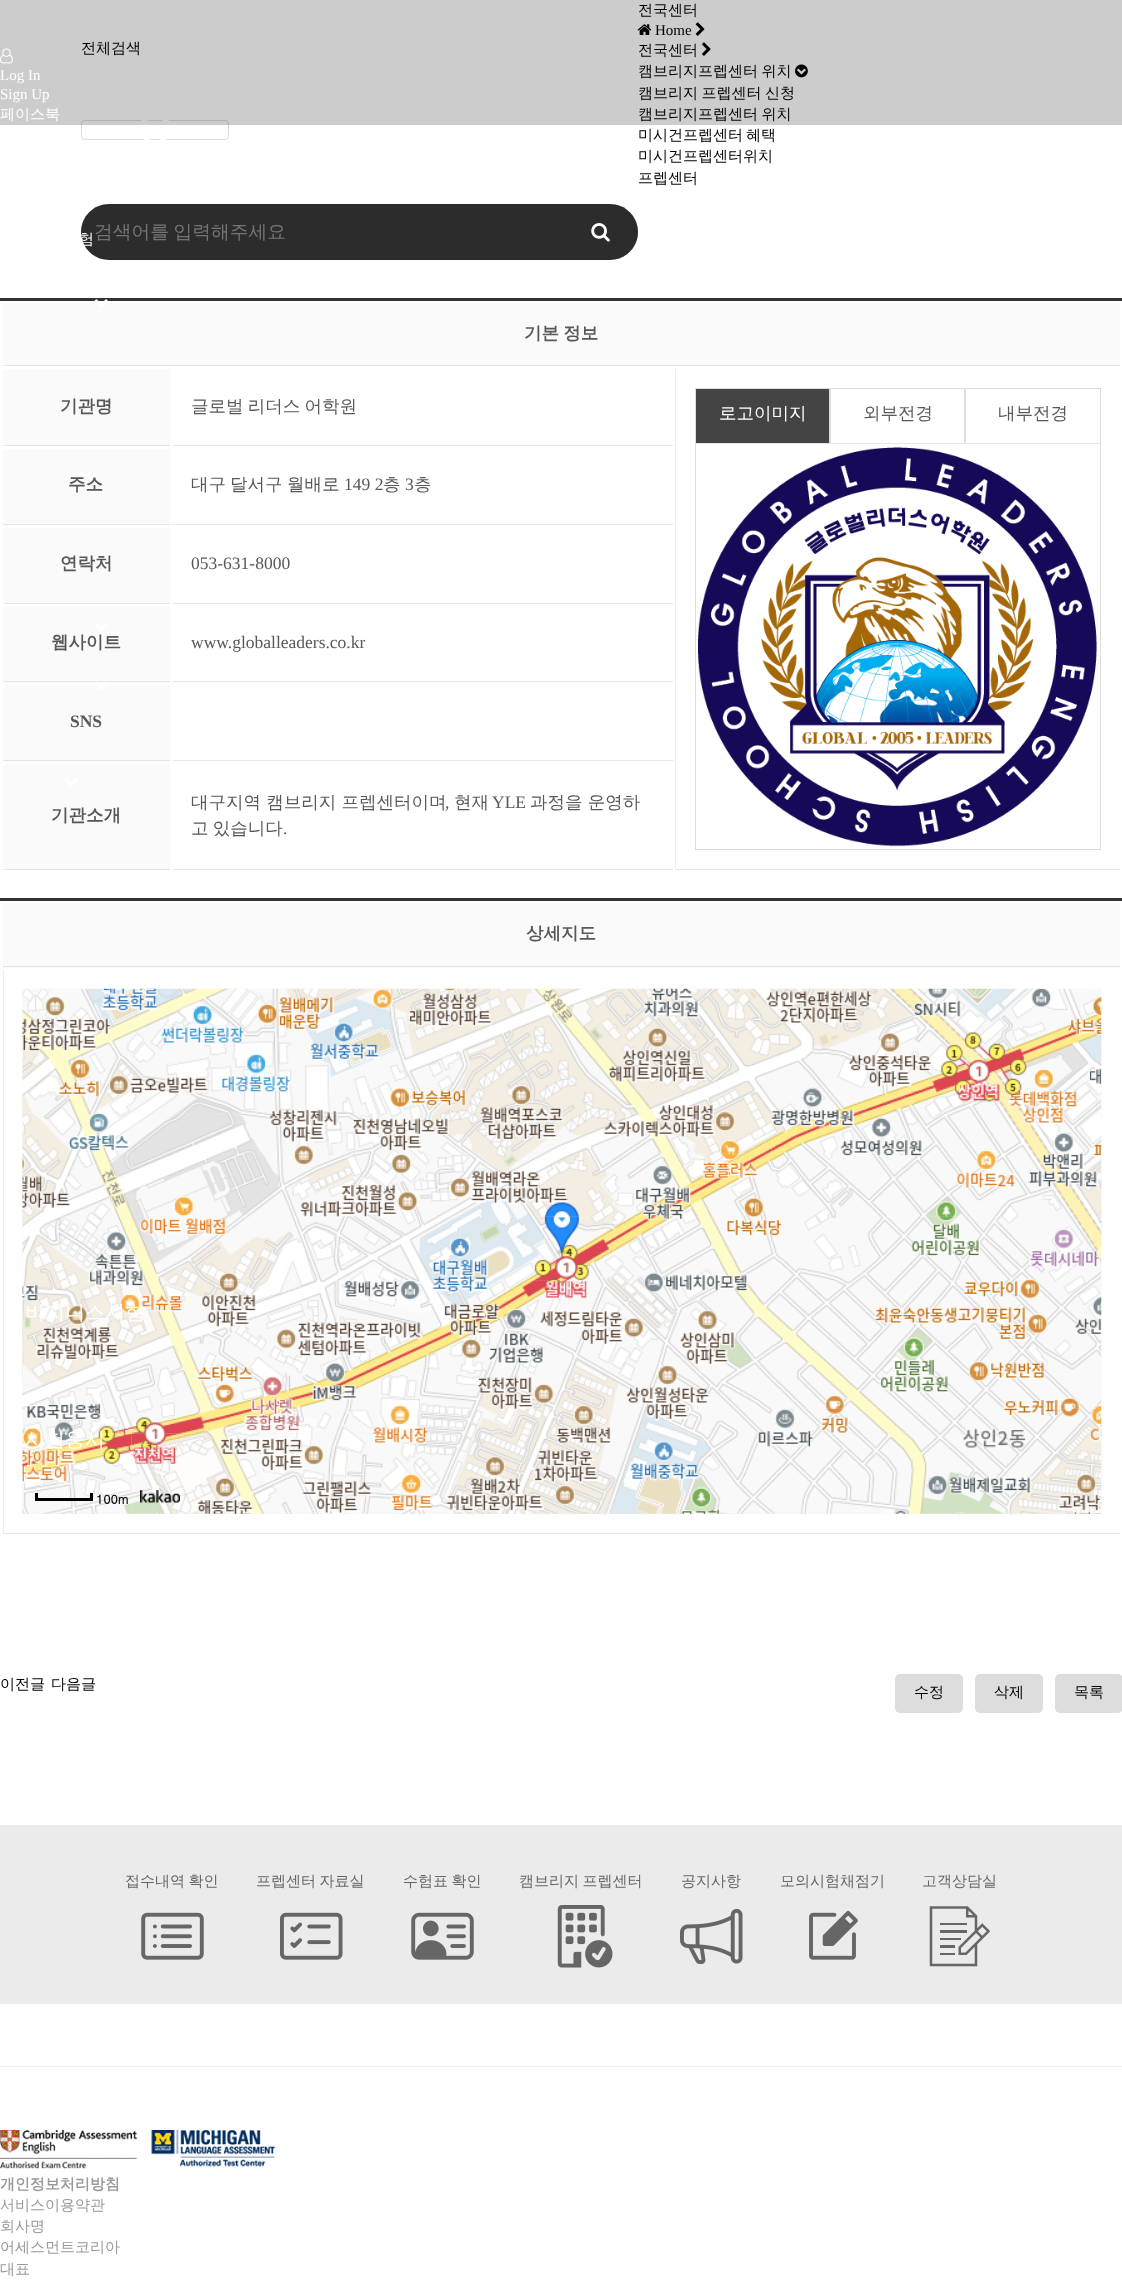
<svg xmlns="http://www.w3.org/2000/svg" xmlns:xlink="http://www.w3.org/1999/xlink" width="1122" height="2282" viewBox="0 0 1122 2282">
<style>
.cls-1{font:500 15px WenQuanYi Zen Hei;fill:#000000}
.cls-2{font:500 15px WenQuanYi Zen Hei;fill:#ffffff}
.cls-3{font:500 20px WenQuanYi Zen Hei;fill:#ffffff}
.cls-4{font:500 18.75px WenQuanYi Zen Hei;fill:#757575}
.cls-5{font:15px Liberation Serif;fill:#000000}
.cls-6{font:15px Liberation Serif;fill:#ffffff}
.cls-7{font:bold 17.5px WenQuanYi Zen Hei;fill:#585858}
.cls-8{font:500 17.5px WenQuanYi Zen Hei;fill:#585858}
.cls-9{font:500 17.5px WenQuanYi Zen Hei;fill:#ffffff}
.cls-10{font:17.5px Liberation Serif;fill:#585858}
.cls-11{font:bold 17.5px Liberation Serif;fill:#585858}
.cls-12{font:bold 12.5px Dotum;fill:#000000}
.cls-13{font:500 15px WenQuanYi Zen Hei;fill:#666666}
.cls-14{font:bold 15px WenQuanYi Zen Hei;fill:#999999}
.cls-15{font:500 15px WenQuanYi Zen Hei;fill:#999999}
</style>
<rect width="100%" height="100%" fill="#ffffff"/>
<rect fill="#333333" x="0" y="298" width="1122" height="3"/>
<rect fill="#fafafa" x="3" y="303" width="1117" height="62"/>
<image xlink:href="image1.png" x="94" y="299" width="14" height="8"/>
<rect fill="#fafafa" x="3" y="606" width="167" height="77"/>
<image xlink:href="image3.png" x="95" y="623" width="13" height="8"/>
<rect fill="#e5e5e5" x="3" y="681" width="167" height="1"/>
<rect fill="#fafafa" x="3" y="685" width="167" height="75"/>
<image xlink:href="image4.png" x="96" y="681" width="11" height="9"/>
<rect fill="#fafafa" x="3" y="764" width="167" height="105"/>
<image xlink:href="image3.png" x="65" y="778" width="13" height="8"/>
<image xlink:href="image12.png" x="22" y="988" width="1080" height="526"/>
<image xlink:href="image23.png" x="22" y="1433" width="110" height="81"/>
<image xlink:href="image24.png" x="131" y="1433" width="321" height="81"/>
<image xlink:href="image18.png" x="22" y="1113" width="110" height="321"/>
<image xlink:href="image25.png" x="451" y="1433" width="321" height="81"/>
<image xlink:href="image19.png" x="131" y="1113" width="321" height="321"/>
<image xlink:href="image13.png" x="22" y="988" width="110" height="126"/>
<image xlink:href="image26.png" x="771" y="1433" width="321" height="81"/>
<image xlink:href="image20.png" x="451" y="1113" width="321" height="321"/>
<image xlink:href="image14.png" x="131" y="988" width="321" height="126"/>
<image xlink:href="image27.png" x="1091" y="1433" width="11" height="81"/>
<image xlink:href="image21.png" x="771" y="1113" width="321" height="321"/>
<image xlink:href="image15.png" x="451" y="988" width="321" height="126"/>
<image xlink:href="image22.png" x="1091" y="1113" width="11" height="321"/>
<image xlink:href="image16.png" x="771" y="988" width="321" height="126"/>
<rect fill="#ffffff" fill-opacity="0.1" x="29" y="1089" width="1039" height="1"/>
<rect fill="#ffffff" fill-opacity="0.1" x="28" y="1153" width="1074" height="1"/>
<image xlink:href="image28.png" x="544" y="1202" width="35" height="53"/>
<rect fill="#ffffff" fill-opacity="0.1" x="23" y="1216" width="1078" height="1"/>
<rect fill="#ffffff" fill-opacity="0.1" x="24" y="1280" width="1073" height="1"/>
<rect fill="#ffffff" fill-opacity="0.1" x="23" y="1344" width="1073" height="1"/>
<rect fill="#ffffff" fill-opacity="0.1" x="23" y="1408" width="1079" height="1"/>
<rect fill="#ffffff" fill-opacity="0.1" x="22" y="1471" width="1079" height="1"/>
<rect fill="none" stroke="#dcdcdc" x="81.5" y="120.5" width="147" height="19" rx="3.5"/>
<image xlink:href="image5.png" x="141" y="120" width="28" height="20"/>
<path fill="#2c2c2c" d="M109 204H563V260H109C93.5 260 81 247.5 81 232C81 216.5 93.5 204 109 204Z"/>
<path fill="#2c2c2c" d="M563 204H610C625.5 204 638 216.5 638 232C638 247.5 625.5 260 610 260H563Z"/>
<image xlink:href="image6.png" x="591" y="223" width="19" height="19"/>
<image xlink:href="image7.png" x="637" y="24" width="15" height="11"/>
<image xlink:href="image8.png" x="695" y="22" width="10" height="14"/>
<image xlink:href="image9.png" x="702" y="42" width="9" height="14"/>
<image xlink:href="image10.png" x="795" y="64" width="13" height="14"/>
<rect fill="#e5e5e5" x="3" y="365" width="1117" height="1"/>
<rect fill="#fafafa" x="3" y="369" width="167" height="76"/>
<rect fill="#e5e5e5" x="3" y="445" width="167" height="1"/>
<rect fill="#e5e5e5" x="173" y="445" width="500" height="1"/>
<rect fill="#e5e5e5" x="675" y="869" width="445" height="1"/>
<rect fill="#eeeeee" x="675" y="369" width="1" height="501"/>
<rect fill="none" stroke="#dddddd" x="695.5" y="388.5" width="405" height="461"/>
<rect fill="#444444" stroke="#dddddd" x="695.5" y="388.5" width="134" height="55"/>
<rect fill="none" stroke="#dddddd" x="830.5" y="388.5" width="134" height="55"/>
<rect fill="none" stroke="#dddddd" x="965.5" y="388.5" width="135" height="55"/>
<image xlink:href="image11.png" x="696" y="443" width="404" height="404"/>
<rect fill="#fafafa" x="3" y="449" width="167" height="75"/>
<rect fill="#e5e5e5" x="3" y="524" width="167" height="1"/>
<rect fill="#e5e5e5" x="173" y="524" width="500" height="1"/>
<rect fill="#fafafa" x="3" y="528" width="167" height="75"/>
<rect fill="#e5e5e5" x="3" y="603" width="167" height="1"/>
<rect fill="#e5e5e5" x="173" y="603" width="500" height="1"/>
<rect fill="#e5e5e5" x="173" y="681" width="500" height="1"/>
<rect fill="#e5e5e5" x="3" y="760" width="167" height="1"/>
<rect fill="#e5e5e5" x="173" y="760" width="500" height="1"/>
<rect fill="#e5e5e5" x="3" y="869" width="167" height="1"/>
<rect fill="#e5e5e5" x="173" y="869" width="500" height="1"/>
<rect fill="#333333" x="0" y="898" width="1122" height="3"/>
<rect fill="#fafafa" x="3" y="903" width="1117" height="65"/>
<rect fill="#e5e5e5" x="3" y="966" width="1117" height="1"/>
<rect fill="#e5e5e5" x="3" y="1533" width="1117" height="1"/>
<rect fill="#eeeeee" x="3" y="970" width="1" height="564"/>
<image xlink:href="image17.png" x="1091" y="989" width="11" height="125"/>
<rect fill="#000000" x="90" y="1493" width="3" height="7"/>
<rect fill="#000000" x="35" y="1498" width="58" height="3"/>
<rect fill="#000000" x="35" y="1493" width="3" height="7"/>
<image xlink:href="image29.png" x="140" y="1490" width="40" height="13"/>
<rect fill="#dddddd" x="895" y="1674" width="68" height="39" rx="5"/>
<rect fill="#dddddd" x="975" y="1674" width="68" height="39" rx="5"/>
<rect fill="#dddddd" x="1055" y="1674" width="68" height="39" rx="5"/>
<rect fill="#ebebeb" x="0" y="1825" width="1122" height="179"/>
<image xlink:href="image30.png" x="141" y="1912" width="63" height="48"/>
<image xlink:href="image31.png" x="280" y="1912" width="63" height="48"/>
<image xlink:href="image32.png" x="411" y="1912" width="63" height="48"/>
<image xlink:href="image33.png" x="557" y="1905" width="56" height="63"/>
<image xlink:href="image34.png" x="680" y="1908" width="63" height="56"/>
<image xlink:href="image35.png" x="809" y="1910" width="49" height="50"/>
<image xlink:href="image36.png" x="929" y="1906" width="62" height="61"/>
<rect fill="#eeeeee" x="0" y="2066" width="1122" height="1"/>
<image xlink:href="image37.png" x="0" y="2130" width="275" height="39"/>
<text class="cls-1" x="638" y="15">전국센터</text>
<text class="cls-2" x="79" y="244" word-spacing="-1">험</text>
<text class="cls-3" x="25" y="1319">비지니스시험</text>
<text class="cls-3" x="25" y="1446">시험응시</text>
<text class="cls-1" x="81" y="53">전체검색</text>
<text class="cls-4" x="94" y="238" word-spacing="-1">검색어를 입력해주세요</text>
<text class="cls-5" x="655" y="35">Home</text>
<text class="cls-1"><tspan x="638" y="55">전국센터</tspan><tspan x="638" y="76" word-spacing="-1">캠브리지프렙센터 위치</tspan><tspan x="638" y="98" word-spacing="-1">캠브리지 프렙센터 신청</tspan><tspan x="638" y="119" word-spacing="-1">캠브리지프렙센터 위치</tspan></text>
<rect fill="#000000" fill-opacity="0.2" x="0" y="0" width="1122" height="125"/>
<text class="cls-2" x="0" y="119">페이스북</text>
<text class="cls-6" x="0" y="99">Sign Up</text>
<text class="cls-6" x="0" y="80">Log In</text>
<image xlink:href="image0.png" x="0" y="48" width="13" height="16"/>
<text class="cls-1" x="638" y="140">미시건프렙센터</text>
<text class="cls-1" x="746" y="140">혜택</text>
<text class="cls-1"><tspan x="638" y="161">미시건프렙센터위치</tspan><tspan x="638" y="183">프렙센터</tspan></text>
<text class="cls-7" x="524" y="339" word-spacing="-1">기본 정보</text>
<text class="cls-7" x="60" y="412">기관명</text>
<text class="cls-8" x="191" y="412" word-spacing="-1">글로벌 리더스 어학원</text>
<text class="cls-9" x="719" y="419">로고이미지</text>
<text class="cls-8" x="863" y="419">외부전경</text>
<text class="cls-8" x="998" y="419">내부전경</text>
<text class="cls-7" x="68" y="490">주소</text>
<image xlink:href="image2.png" x="80" y="471" width="13" height="8"/>
<text class="cls-8" x="191" y="490">대구</text>
<text class="cls-8" x="230" y="490">달서구</text>
<text class="cls-8" x="287" y="490">월배로</text>
<text class="cls-10" x="344" y="490">149 2</text>
<text class="cls-8" x="383" y="490">층</text>
<text class="cls-10" x="405" y="490">3</text>
<text class="cls-8" x="414" y="490">층</text>
<text class="cls-7" x="60" y="569">연락처</text>
<text class="cls-10" x="191" y="569">053-631-8000</text>
<text class="cls-7" x="51" y="648">웹사이트</text>
<text class="cls-10" x="191" y="648">www.globalleaders.co.kr</text>
<text class="cls-11" x="70" y="727">SNS</text>
<text class="cls-7" x="51" y="821">기관소개</text>
<text class="cls-8" x="191" y="808">대구지역 캠브리지 프렙센터이며</text>
<text class="cls-8" x="454" y="808">현재</text>
<text class="cls-10" x="492" y="808">YLE</text>
<text class="cls-8" x="530" y="808">과정을 운영하</text>
<text class="cls-10" x="445" y="808">,</text>
<text class="cls-8" x="191" y="834" word-spacing="-1">고 있습니다</text>
<text class="cls-10" x="283" y="834">.</text>
<text class="cls-7" x="526" y="939">상세지도</text>
<text class="cls-12" x="96" y="1504">100m</text>
<text class="cls-1" x="0" y="1689">이전글</text>
<text class="cls-1" x="51" y="1689">다음글</text>
<text class="cls-1" x="914" y="1697">수정</text>
<text class="cls-1" x="994" y="1697">삭제</text>
<text class="cls-1" x="1074" y="1697">목록</text>
<text class="cls-13" x="125" y="1886" word-spacing="-1">접수내역 확인</text>
<text class="cls-13" x="256" y="1886" word-spacing="-1">프렙센터 자료실</text>
<text class="cls-13" x="403" y="1886" word-spacing="-1">수험표 확인</text>
<text class="cls-13" x="519" y="1886" word-spacing="-1">캠브리지 프렙센터</text>
<text class="cls-13" x="681" y="1886">공지사항</text>
<text class="cls-13" x="780" y="1886">모의시험채점기</text>
<text class="cls-13" x="922" y="1886">고객상담실</text>
<text class="cls-14" x="0" y="2189">개인정보처리방침</text>
<text class="cls-15"><tspan x="0" y="2210">서비스이용약관</tspan><tspan x="0" y="2231">회사명</tspan><tspan x="0" y="2252">어세스먼트코리아</tspan><tspan x="0" y="2274">대표</tspan></text>
</svg>
